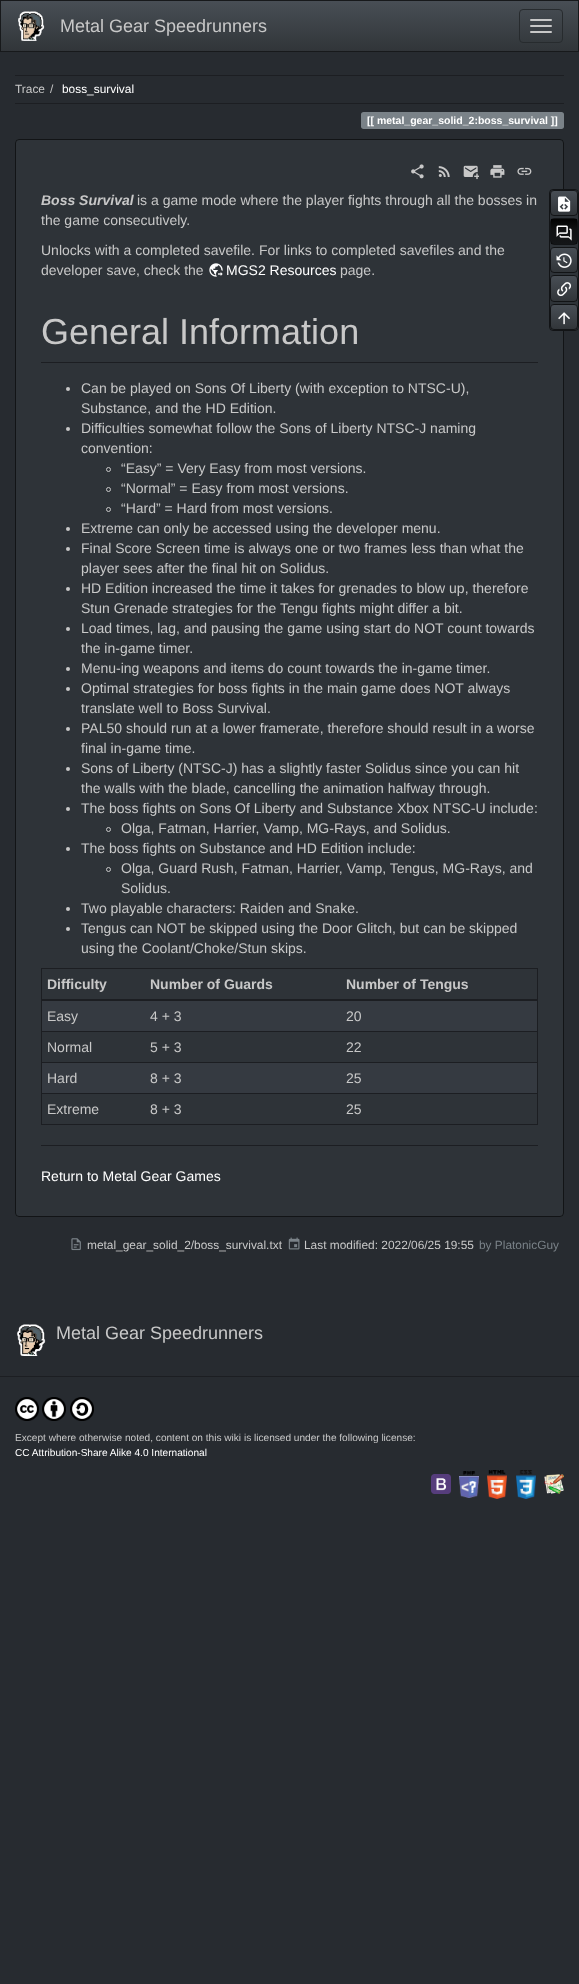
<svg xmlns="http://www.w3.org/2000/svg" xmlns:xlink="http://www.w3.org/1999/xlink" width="579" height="1984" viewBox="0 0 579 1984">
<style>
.cls-1{font:18px Liberation Sans;fill:#c8c8c8}
.cls-2{font:11.9px Liberation Sans;fill:#c8c8c8}
.cls-3{font:11.9px Liberation Sans;fill:#ffffff}
.cls-4{font:bold 10.5px Liberation Sans;fill:#ffffff}
.cls-5{font:italic bold 14px Liberation Sans;fill:#c8c8c8}
.cls-6{font:14px Liberation Sans;fill:#c8c8c8}
.cls-7{font:14px Liberation Sans;fill:#ffffff}
.cls-8{font:36px Liberation Sans;fill:#c8c8c8}
.cls-9{font:bold 14px Liberation Sans;fill:#c8c8c8}
.cls-10{font:11.9px Liberation Sans;fill:#7a8288}
.cls-11{font:10.1px Liberation Sans;fill:#c8c8c8}
.cls-12{font:10.1px Liberation Sans;fill:#ffffff}
</style>
<defs>
<linearGradient id="g1" gradientUnits="userSpaceOnUse" x1="290" y1="1" x2="290" y2="51"><stop offset="0" stop-color="#484e55"/><stop offset="0.6" stop-color="#3a3f44"/><stop offset="1" stop-color="#313539"/></linearGradient>
<clipPath id="clip1"><rect x="550" y="190" width="28" height="26" rx="4"/></clipPath>
<linearGradient id="g2" gradientUnits="userSpaceOnUse" x1="564" y1="191" x2="564" y2="215"><stop offset="0" stop-color="#484e55"/><stop offset="0.6" stop-color="#3a3f44"/><stop offset="1" stop-color="#313539"/></linearGradient>
<clipPath id="clip2"><rect x="550" y="218" width="28" height="27" rx="4"/></clipPath>
<linearGradient id="g3" gradientUnits="userSpaceOnUse" x1="564" y1="219" x2="564" y2="244"><stop offset="0" stop-color="#020202"/><stop offset="0.4" stop-color="#101112"/><stop offset="1" stop-color="#141618"/></linearGradient>
<clipPath id="clip3"><rect x="550" y="247" width="28" height="26" rx="4"/></clipPath>
<linearGradient id="g4" gradientUnits="userSpaceOnUse" x1="564" y1="248" x2="564" y2="272"><stop offset="0" stop-color="#484e55"/><stop offset="0.6" stop-color="#3a3f44"/><stop offset="1" stop-color="#313539"/></linearGradient>
<clipPath id="clip4"><rect x="550" y="275" width="28" height="27" rx="4"/></clipPath>
<linearGradient id="g5" gradientUnits="userSpaceOnUse" x1="564" y1="276" x2="564" y2="301"><stop offset="0" stop-color="#484e55"/><stop offset="0.6" stop-color="#3a3f44"/><stop offset="1" stop-color="#313539"/></linearGradient>
<clipPath id="clip5"><rect x="550" y="304" width="28" height="26" rx="4"/></clipPath>
<linearGradient id="g6" gradientUnits="userSpaceOnUse" x1="564" y1="305" x2="564" y2="329"><stop offset="0" stop-color="#484e55"/><stop offset="0.6" stop-color="#3a3f44"/><stop offset="1" stop-color="#313539"/></linearGradient>
</defs>
<rect width="100%" height="100%" fill="#272b30"/>
<rect fill="url(#g1)" x="1" y="1" width="577" height="50"/>
<rect fill="none" stroke="#17191b" x="0.5" y="0.5" width="578" height="51"/>
<image xlink:href="image0.png" x="17" y="11" width="28" height="30"/>
<rect fill="none" stroke="#272b2e" x="519.5" y="9.5" width="43" height="33" rx="3.5"/>
<rect fill="#c8c8c8" x="530" y="19" width="22" height="2" rx="1"/>
<rect fill="#c8c8c8" x="530" y="25" width="22" height="2" rx="1"/>
<rect fill="#c8c8c8" x="530" y="31" width="22" height="2" rx="1"/>
<rect fill="#1c1e22" x="15" y="75" width="549" height="1"/>
<rect fill="#1c1e22" x="15" y="103" width="549" height="1"/>
<path fill="#7a8288" d="M363.5 112H377V129H363.5C362 129 361 128 361 126.5V114.5C361 113 362 112 363.5 112Z"/>
<rect fill="#7a8288" x="377" y="112" width="171" height="17"/>
<path fill="#7a8288" d="M548 112H561.5C563 112 564 113 564 114.5V126.5C564 128 563 129 561.5 129H548Z"/>
<rect fill="#2e3338" x="15" y="139" width="549" height="1078" rx="4"/>
<rect fill="none" stroke="#000000" stroke-opacity="0.6" x="15.5" y="139.5" width="548" height="1077" rx="3.5"/>
<image xlink:href="image1.png" x="411" y="164" width="13" height="15"/>
<image xlink:href="image2.png" x="438" y="166" width="12" height="11"/>
<image xlink:href="image3.png" x="463" y="165" width="16" height="15"/>
<image xlink:href="image4.png" x="490" y="165" width="15" height="13"/>
<image xlink:href="image5.png" x="517" y="167" width="15" height="8"/>
<image xlink:href="image6.png" x="209" y="263" width="14" height="14"/>
<rect fill="#1c1e22" x="41" y="362" width="497" height="1"/>
<circle fill="#c8c8c8" cx="68" cy="389" r="2"/>
<circle fill="#c8c8c8" cx="68" cy="429" r="2"/>
<circle fill="none" stroke="#c8c8c8" cx="108.5" cy="469.5" r="2"/>
<circle fill="none" stroke="#c8c8c8" cx="108.5" cy="489.5" r="2"/>
<circle fill="none" stroke="#c8c8c8" cx="108.5" cy="509.5" r="2"/>
<circle fill="#c8c8c8" cx="68" cy="529" r="2"/>
<circle fill="#c8c8c8" cx="68" cy="549" r="2"/>
<circle fill="#c8c8c8" cx="68" cy="589" r="2"/>
<circle fill="#c8c8c8" cx="68" cy="629" r="2"/>
<circle fill="#c8c8c8" cx="68" cy="669" r="2"/>
<circle fill="#c8c8c8" cx="68" cy="689" r="2"/>
<circle fill="#c8c8c8" cx="68" cy="729" r="2"/>
<circle fill="#c8c8c8" cx="68" cy="769" r="2"/>
<circle fill="#c8c8c8" cx="68" cy="809" r="2"/>
<circle fill="none" stroke="#c8c8c8" cx="108.5" cy="829.5" r="2"/>
<circle fill="#c8c8c8" cx="68" cy="849" r="2"/>
<circle fill="none" stroke="#c8c8c8" cx="108.5" cy="869.5" r="2"/>
<circle fill="#c8c8c8" cx="68" cy="909" r="2"/>
<circle fill="#c8c8c8" cx="68" cy="929" r="2"/>
<rect fill="none" stroke="#1c1e22" x="41.5" y="968.5" width="496" height="156"/>
<rect fill="#1c1e22" x="42" y="999" width="495" height="2"/>
<rect fill="#353a41" x="42" y="1001" width="495" height="30"/>
<rect fill="#1c1e22" x="42" y="1031" width="495" height="1"/>
<rect fill="#353a41" x="42" y="1063" width="495" height="30"/>
<rect fill="#1c1e22" x="42" y="1062" width="495" height="1"/>
<rect fill="#1c1e22" x="42" y="1093" width="495" height="1"/>
<rect fill="#1c1e22" x="41" y="1145" width="497" height="1"/>
<rect fill="#2e3338" x="549" y="189" width="30" height="142" rx="4"/>
<rect fill="none" stroke="#000000" stroke-opacity="0.6" x="549.5" y="189.5" width="29" height="141" rx="3.5"/>
<g clip-path="url(#clip1)">
<rect fill="url(#g2)" x="551" y="191" width="26" height="24"/>
</g>
<rect fill="none" stroke="#000000" stroke-opacity="0.6" x="550.5" y="190.5" width="27" height="25" rx="3.5"/>
<image xlink:href="image7.png" x="558" y="196" width="13" height="16"/>
<g clip-path="url(#clip2)">
<rect fill="url(#g3)" x="551" y="219" width="26" height="25"/>
</g>
<rect fill="none" stroke="#000000" stroke-opacity="0.6" x="550.5" y="218.5" width="27" height="26" rx="3.5"/>
<image xlink:href="image8.png" x="556" y="225" width="16" height="16"/>
<g clip-path="url(#clip3)">
<rect fill="url(#g4)" x="551" y="248" width="26" height="24"/>
</g>
<rect fill="none" stroke="#000000" stroke-opacity="0.6" x="550.5" y="247.5" width="27" height="25" rx="3.5"/>
<image xlink:href="image9.png" x="556" y="253" width="16" height="15"/>
<g clip-path="url(#clip4)">
<rect fill="url(#g5)" x="551" y="276" width="26" height="25"/>
</g>
<rect fill="none" stroke="#000000" stroke-opacity="0.6" x="550.5" y="275.5" width="27" height="26" rx="3.5"/>
<image xlink:href="image10.png" x="557" y="282" width="15" height="15"/>
<g clip-path="url(#clip5)">
<rect fill="url(#g6)" x="551" y="305" width="26" height="24"/>
</g>
<rect fill="none" stroke="#000000" stroke-opacity="0.6" x="550.5" y="304.5" width="27" height="25" rx="3.5"/>
<image xlink:href="image11.png" x="558" y="312" width="12" height="13"/>
<image xlink:href="image12.png" x="71" y="1238" width="10" height="13"/>
<image xlink:href="image13.png" x="288" y="1237" width="12" height="13"/>
<image xlink:href="image14.png" x="17" y="1324" width="29" height="32"/>
<rect fill="#1c1e22" x="0" y="1376" width="579" height="1"/>
<image xlink:href="image15.png" x="15" y="1397" width="24" height="24"/>
<image xlink:href="image16.png" x="42" y="1397" width="24" height="24"/>
<image xlink:href="image17.png" x="70" y="1397" width="24" height="24"/>
<image xlink:href="image18.png" x="431" y="1474" width="20" height="20"/>
<image xlink:href="image19.png" x="459" y="1471" width="20" height="27"/>
<image xlink:href="image20.png" x="487" y="1470" width="20" height="29"/>
<image xlink:href="image21.png" x="516" y="1470" width="20" height="29"/>
<image xlink:href="image22.png" x="544" y="1474" width="20" height="20"/>
<text class="cls-1" x="60" y="32">Metal Gear Speedrunners</text>
<text class="cls-2" x="15" y="93">Trace</text>
<text class="cls-2" x="50" y="93">/</text>
<text class="cls-3" x="62" y="93">boss_survival</text>
<text class="cls-4" x="367" y="124">[[ metal_gear_solid_2:boss_survival ]]</text>
<text class="cls-5" x="41" y="205">Boss Survival</text>
<text class="cls-6" x="137" y="205">is a game mode where the player fights through all the bosses in</text>
<text class="cls-6" x="41" y="225">the game consecutively.</text>
<text class="cls-6"><tspan x="41" y="255">Unlocks with a completed savefile. For links to completed savefiles and the</tspan><tspan x="41" y="275">developer save, check the</tspan></text>
<text class="cls-7" x="226" y="275">MGS2 Resources</text>
<text class="cls-6" x="340" y="275">page.</text>
<text class="cls-8" x="41" y="344">General Information</text>
<text class="cls-6"><tspan x="81" y="393">Can be played on Sons Of Liberty (with exception to NTSC-U),</tspan><tspan x="81" y="413">Substance, and the HD Edition.</tspan><tspan x="81" y="433">Difficulties somewhat follow the Sons of Liberty NTSC-J naming</tspan><tspan x="81" y="453">convention:</tspan></text>
<text class="cls-6"><tspan x="121" y="473">“Easy” = Very Easy from most versions.</tspan><tspan x="121" y="493">“Normal” = Easy from most versions.</tspan><tspan x="121" y="513">“Hard” = Hard from most versions.</tspan></text>
<text class="cls-6"><tspan x="81" y="533">Extreme can only be accessed using the developer menu.</tspan><tspan x="81" y="553">Final Score Screen time is always one or two frames less than what the</tspan><tspan x="81" y="573">player sees after the final hit on Solidus.</tspan><tspan x="81" y="593">HD Edition increased the time it takes for grenades to blow up, therefore</tspan><tspan x="81" y="613">Stun Grenade strategies for the Tengu fights might differ a bit.</tspan><tspan x="81" y="633">Load times, lag, and pausing the game using start do NOT count towards</tspan><tspan x="81" y="653">the in-game timer.</tspan><tspan x="81" y="673">Menu-ing weapons and items do count towards the in-game timer.</tspan><tspan x="81" y="693">Optimal strategies for boss fights in the main game does NOT always</tspan><tspan x="81" y="713">translate well to Boss Survival.</tspan><tspan x="81" y="733">PAL50 should run at a lower framerate, therefore should result in a worse</tspan><tspan x="81" y="753">final in-game time.</tspan><tspan x="81" y="773">Sons of Liberty (NTSC-J) has a slightly faster Solidus since you can hit</tspan><tspan x="81" y="793">the walls with the blade, cancelling the animation halfway through.</tspan><tspan x="81" y="813">The boss fights on Sons Of Liberty and Substance Xbox NTSC-U include:</tspan></text>
<text class="cls-6" x="121" y="833">Olga, Fatman, Harrier, Vamp, MG-Rays, and Solidus.</text>
<text class="cls-6" x="81" y="853">The boss fights on Substance and HD Edition include:</text>
<text class="cls-6"><tspan x="121" y="873">Olga, Guard Rush, Fatman, Harrier, Vamp, Tengus, MG-Rays, and</tspan><tspan x="121" y="893">Solidus.</tspan></text>
<text class="cls-6"><tspan x="81" y="913">Two playable characters: Raiden and Snake.</tspan><tspan x="81" y="933">Tengus can NOT be skipped using the Door Glitch, but can be skipped</tspan><tspan x="81" y="953">using the Coolant/Choke/Stun skips.</tspan></text>
<text class="cls-9" x="47" y="989">Difficulty</text>
<text class="cls-9" x="150" y="989">Number of Guards</text>
<text class="cls-9" x="346" y="989">Number of Tengus</text>
<text class="cls-6" x="47" y="1021">Easy</text>
<text class="cls-6" x="150" y="1021">4 + 3</text>
<text class="cls-6" x="346" y="1021">20</text>
<text class="cls-6" x="47" y="1052">Normal</text>
<text class="cls-6" x="150" y="1052">5 + 3</text>
<text class="cls-6" x="346" y="1052">22</text>
<text class="cls-6" x="47" y="1083">Hard</text>
<text class="cls-6" x="150" y="1083">8 + 3</text>
<text class="cls-6" x="346" y="1083">25</text>
<text class="cls-6" x="47" y="1114">Extreme</text>
<text class="cls-6" x="150" y="1114">8 + 3</text>
<text class="cls-6" x="346" y="1114">25</text>
<text class="cls-7" x="41" y="1181">Return to Metal Gear Games</text>
<text class="cls-2" x="87" y="1249">metal_gear_solid_2/boss_survival.txt</text>
<text class="cls-2" x="304" y="1249">Last modified: 2022/06/25 19:55</text>
<text class="cls-10" x="479" y="1249">by PlatonicGuy</text>
<text class="cls-1" x="56" y="1339">Metal Gear Speedrunners</text>
<text class="cls-11" x="15" y="1441">Except where otherwise noted, content on this wiki is licensed under the following license:</text>
<text class="cls-12" x="15" y="1456">CC Attribution-Share Alike 4.0 International</text>
</svg>
